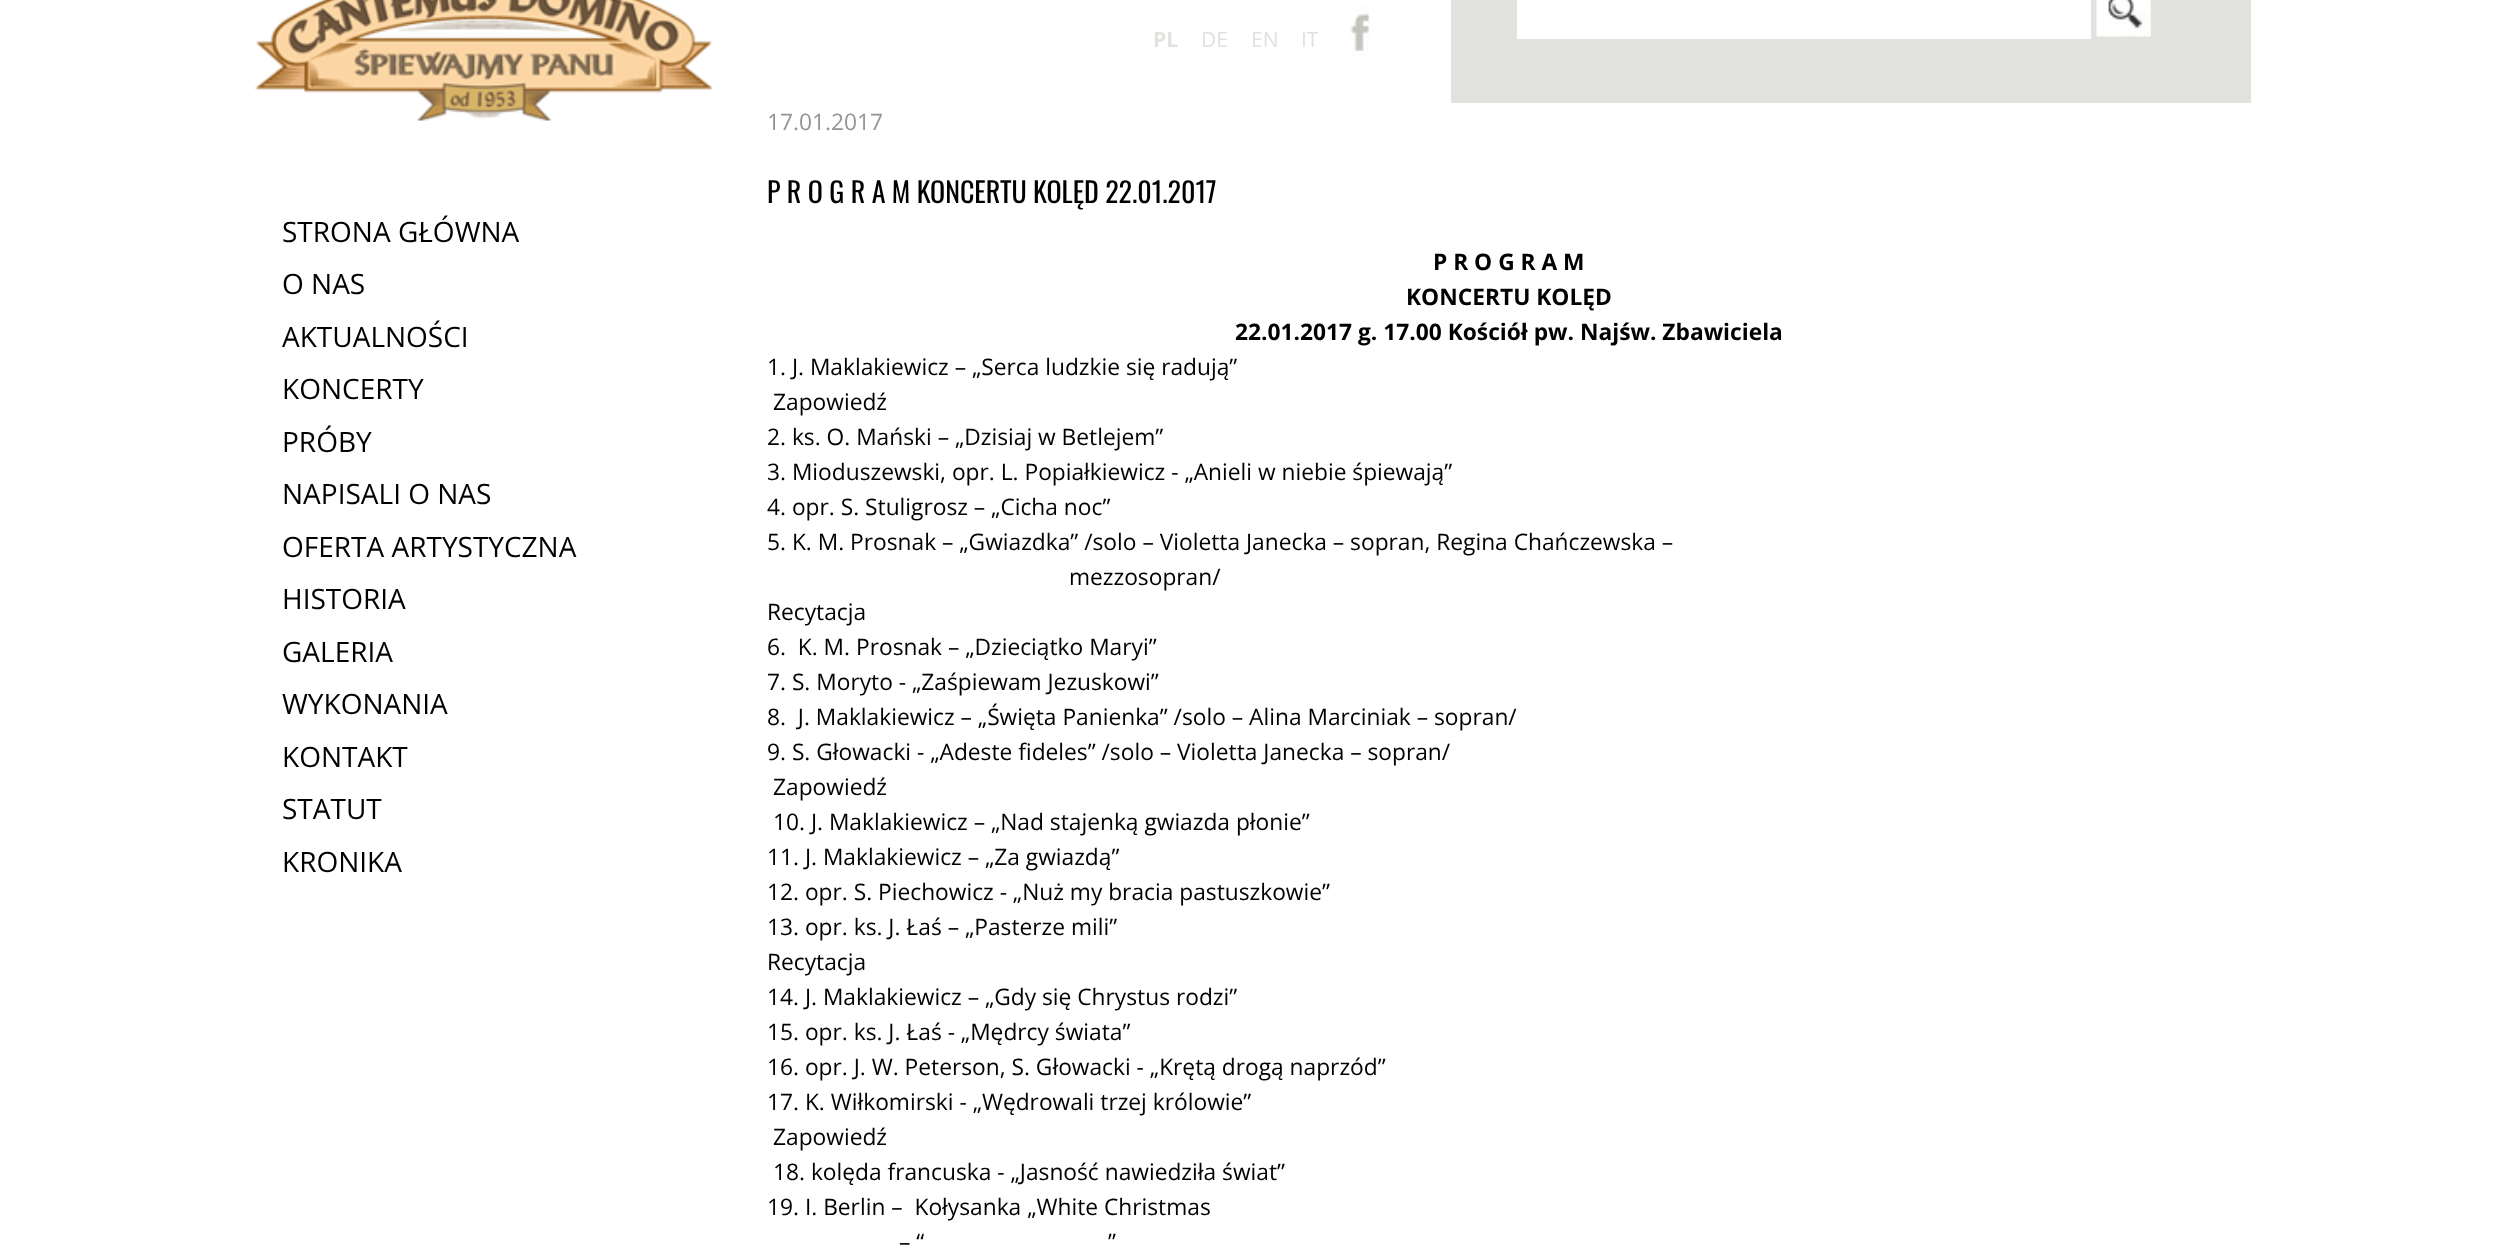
<svg xmlns="http://www.w3.org/2000/svg" xmlns:xlink="http://www.w3.org/1999/xlink" width="2506" height="1245" viewBox="0 0 2506 1245">
<style>
.cls-1{font:bold 21px Open Sans;fill:#e1e2dd}
.cls-2{font:21px Open Sans;fill:#e1e2dd}
.cls-3{font:28px Open Sans;fill:#000000}
.cls-4{font:22.75px Open Sans;fill:#949494}
.cls-5{font:28px Oswald;fill:#000000}
.cls-6{font:bold 22.75px Open Sans;fill:#000000}
.cls-7{font:22.75px Open Sans;fill:#000000}
</style>
<rect width="100%" height="100%" fill="#ffffff"/>
<image xlink:href="image0.png" x="255" y="0" width="458" height="121"/>
<image xlink:href="image1.png" x="1350" y="5" width="20" height="54"/>
<rect fill="#e1e2dd" x="1451" y="0" width="800" height="103"/>
<rect fill="#ffffff" x="1517" y="0" width="574" height="39"/>
<image xlink:href="image2.png" x="2096" y="0" width="55" height="37"/>
<text class="cls-1" x="1153" y="47">PL</text>
<text class="cls-2" x="1201" y="47">DE</text>
<text class="cls-2" x="1251" y="47">EN</text>
<text class="cls-2" x="1301" y="47">IT</text>
<text class="cls-3"><tspan x="282" y="242">STRONA GŁÓWNA</tspan><tspan x="282" y="294">O NAS</tspan><tspan x="282" y="347">AKTUALNOŚCI</tspan><tspan x="282" y="399">KONCERTY</tspan><tspan x="282" y="452">PRÓBY</tspan><tspan x="282" y="504">NAPISALI O NAS</tspan><tspan x="282" y="557">OFERTA ARTYSTYCZNA</tspan><tspan x="282" y="609">HISTORIA</tspan><tspan x="282" y="662">GALERIA</tspan><tspan x="282" y="714">WYKONANIA</tspan><tspan x="282" y="767">KONTAKT</tspan><tspan x="282" y="819">STATUT</tspan><tspan x="282" y="872">KRONIKA</tspan></text>
<text class="cls-4" x="767" y="130">17.01.2017</text>
<text class="cls-5" x="767" y="203">P R O G R A M KONCERTU KOLĘD 22.01.2017</text>
<text class="cls-6" x="1433" y="270">P R O G R A M</text>
<text class="cls-6" x="1406" y="305">KONCERTU KOLĘD</text>
<text class="cls-6" x="1235" y="340">22.01.2017 g. 17.00 Kościół pw. Najśw. Zbawiciela</text>
<text class="cls-7" x="767" y="375">1. J. Maklakiewicz – „Serca ludzkie się radują”</text>
<text class="cls-7" x="773" y="410">Zapowiedź</text>
<text class="cls-7"><tspan x="767" y="445">2. ks. O. Mański – „Dzisiaj w Betlejem”</tspan><tspan x="767" y="480">3. Mioduszewski, opr. L. Popiałkiewicz - „Anieli w niebie śpiewają”</tspan><tspan x="767" y="515">4. opr. S. Stuligrosz – „Cicha noc”</tspan><tspan x="767" y="550">5. K. M. Prosnak – „Gwiazdka” /solo – Violetta Janecka – sopran, Regina Chańczewska –</tspan></text>
<text class="cls-7" x="1069" y="585">mezzosopran/</text>
<text class="cls-7" xml:space="preserve"><tspan x="767" y="620">Recytacja</tspan><tspan x="767" y="655">6.  K. M. Prosnak – „Dzieciątko Maryi”</tspan><tspan x="767" y="690">7. S. Moryto - „Zaśpiewam Jezuskowi”</tspan><tspan x="767" y="725">8.  J. Maklakiewicz – „Święta Panienka” /solo – Alina Marciniak – sopran/</tspan><tspan x="767" y="760">9. S. Głowacki - „Adeste fideles” /solo – Violetta Janecka – sopran/</tspan></text>
<text class="cls-7"><tspan x="773" y="795">Zapowiedź</tspan><tspan x="773" y="830">10. J. Maklakiewicz – „Nad stajenką gwiazda płonie”</tspan></text>
<text class="cls-7"><tspan x="767" y="865">11. J. Maklakiewicz – „Za gwiazdą”</tspan><tspan x="767" y="900">12. opr. S. Piechowicz - „Nuż my bracia pastuszkowie”</tspan><tspan x="767" y="935">13. opr. ks. J. Łaś – „Pasterze mili”</tspan><tspan x="767" y="970">Recytacja</tspan><tspan x="767" y="1005">14. J. Maklakiewicz – „Gdy się Chrystus rodzi”</tspan><tspan x="767" y="1040">15. opr. ks. J. Łaś - „Mędrcy świata”</tspan><tspan x="767" y="1075">16. opr. J. W. Peterson, S. Głowacki - „Krętą drogą naprzód”</tspan><tspan x="767" y="1110">17. K. Wiłkomirski - „Wędrowali trzej królowie”</tspan></text>
<text class="cls-7"><tspan x="773" y="1145">Zapowiedź</tspan><tspan x="773" y="1180">18. kolęda francuska - „Jasność nawiedziła świat”</tspan></text>
<text class="cls-7" xml:space="preserve" x="767" y="1215">19. I. Berlin –  Kołysanka „White Christmas</text>
<text class="cls-7" x="899" y="1250">– “</text>
<text class="cls-7" x="1108" y="1250">”</text>
</svg>
